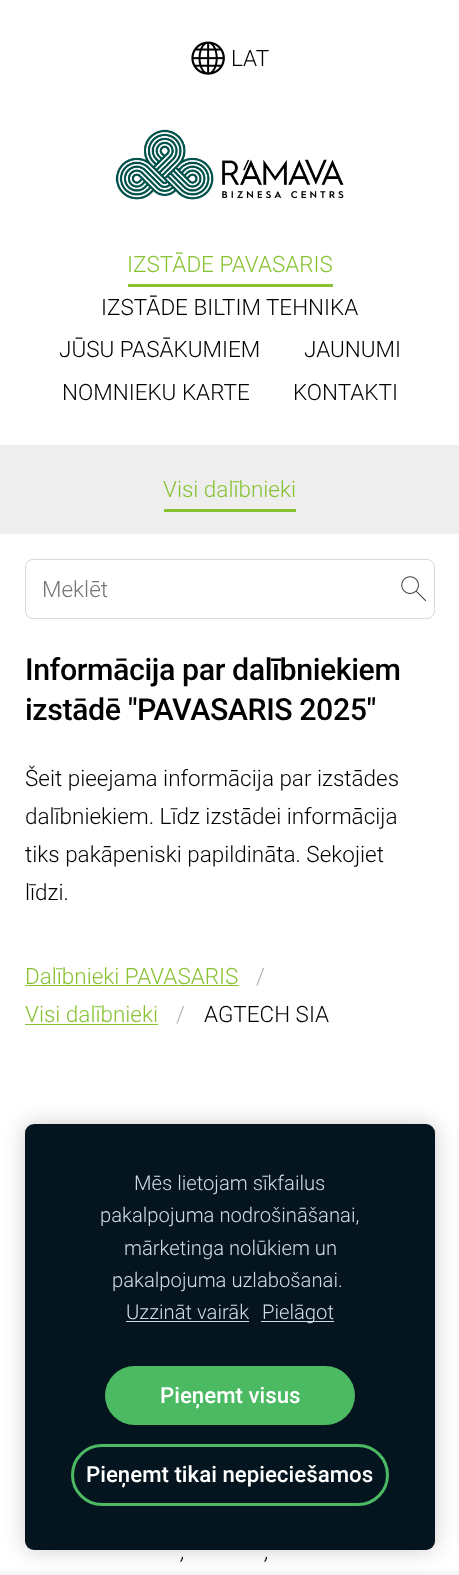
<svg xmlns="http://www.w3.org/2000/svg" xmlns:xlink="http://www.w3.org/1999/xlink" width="459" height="1575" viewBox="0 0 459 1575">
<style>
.cls-1{font:300 22.5px Roboto;fill:#000000}
.cls-2{font:300 22.5px Roboto;fill:#87c232}
.cls-3{font:300 22.5px Roboto;fill:#757575}
.cls-4{font:500 30.4px Roboto;letter-spacing:-0.45px;fill:#000000}
.cls-5{font:300 22.5px Roboto;fill:#b3b3b3}
.cls-6{font:italic 300 22.5px Roboto;fill:#000000}
.cls-7{font:300 20.25px Roboto;fill:#d2dce6}
.cls-8{font:500 22.25px Roboto;fill:#ffffff}
</style>
<rect width="100%" height="100%" fill="#ffffff"/>
<image xlink:href="image0.png" x="191" y="41" width="34" height="34"/>
<image xlink:href="image1.png" x="115" y="129" width="229" height="71"/>
<rect fill="#87c232" x="128" y="284" width="205" height="3"/>
<rect fill="#eeeeee" x="0" y="445" width="459" height="89"/>
<rect fill="#87c232" x="164" y="509" width="132" height="3"/>
<rect fill="none" stroke="#d9d9d9" x="25.5" y="559.5" width="409" height="59" rx="7.5"/>
<image xlink:href="image2.png" x="401" y="576" width="25" height="25"/>
<rect fill="#87c232" x="25" y="985" width="214" height="1"/>
<rect fill="#87c232" x="25" y="1024" width="133" height="1"/>
<rect fill="#000000" fill-opacity="0.1" filter="blur(3px)" x="-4" y="1574" width="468" height="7"/>
<rect fill="#000000" fill-opacity="0.2" filter="blur(10.5px)" x="25" y="1124" width="410" height="426" rx="9"/>
<rect fill="#04151f" x="25" y="1124" width="410" height="426" rx="9"/>
<rect fill="#d2dce6" x="126" y="1321" width="123" height="1"/>
<rect fill="#d2dce6" x="261" y="1321" width="73" height="1"/>
<rect fill="#4cb963" x="105" y="1366" width="250" height="59" rx="29.5"/>
<rect fill="none" stroke="#4cb963" stroke-width="3" x="72.5" y="1445.5" width="315" height="59" rx="29.5"/>
<text class="cls-1" x="231" y="66">LAT</text>
<text class="cls-2" x="127" y="272">IZSTĀDE PAVASARIS</text>
<text class="cls-1" x="101" y="315">IZSTĀDE BILTIM TEHNIKA</text>
<text class="cls-1" x="59" y="357">JŪSU PASĀKUMIEM</text>
<text class="cls-1" x="304" y="357">JAUNUMI</text>
<text class="cls-1" x="62" y="400">NOMNIEKU KARTE</text>
<text class="cls-1" x="293" y="400">KONTAKTI</text>
<text class="cls-2" x="163" y="497">Visi dalībnieki</text>
<text class="cls-3" x="42" y="597">Meklēt</text>
<text class="cls-4"><tspan x="25" y="680">Informācija par dalībniekiem</tspan><tspan x="25" y="720">izstādē "PAVASARIS 2025"</tspan></text>
<text class="cls-1"><tspan x="25" y="786">Šeit pieejama informācija par izstādes</tspan><tspan x="25" y="824">dalībniekiem. Līdz izstādei informācija</tspan><tspan x="25" y="862">tiks pakāpeniski papildināta. Sekojiet</tspan><tspan x="25" y="900">līdzi.</tspan></text>
<text class="cls-2" x="25" y="984">Dalībnieki PAVASARIS</text>
<text class="cls-5" x="256" y="984">/</text>
<text class="cls-2" x="25" y="1022">Visi dalībnieki</text>
<text class="cls-5" x="176" y="1022">/</text>
<text class="cls-1" x="204" y="1022">AGTECH SIA</text>
<text class="cls-6" x="181" y="1559">,</text>
<text class="cls-6" x="265" y="1559">,</text>
<text class="cls-7" x="134" y="1190">Mēs lietojam sīkfailus</text>
<text class="cls-7" x="100" y="1222">pakalpojuma nodrošināšanai,</text>
<text class="cls-7" x="124" y="1255">mārketinga nolūkiem un</text>
<text class="cls-7" x="112" y="1287">pakalpojuma uzlabošanai.</text>
<text class="cls-7" x="126" y="1319">Uzzināt vairāk</text>
<text class="cls-7" x="262" y="1319">Pielāgot</text>
<text class="cls-8" x="160" y="1403">Pieņemt visus</text>
<text class="cls-8" x="86" y="1482">Pieņemt tikai nepieciešamos</text>
</svg>
